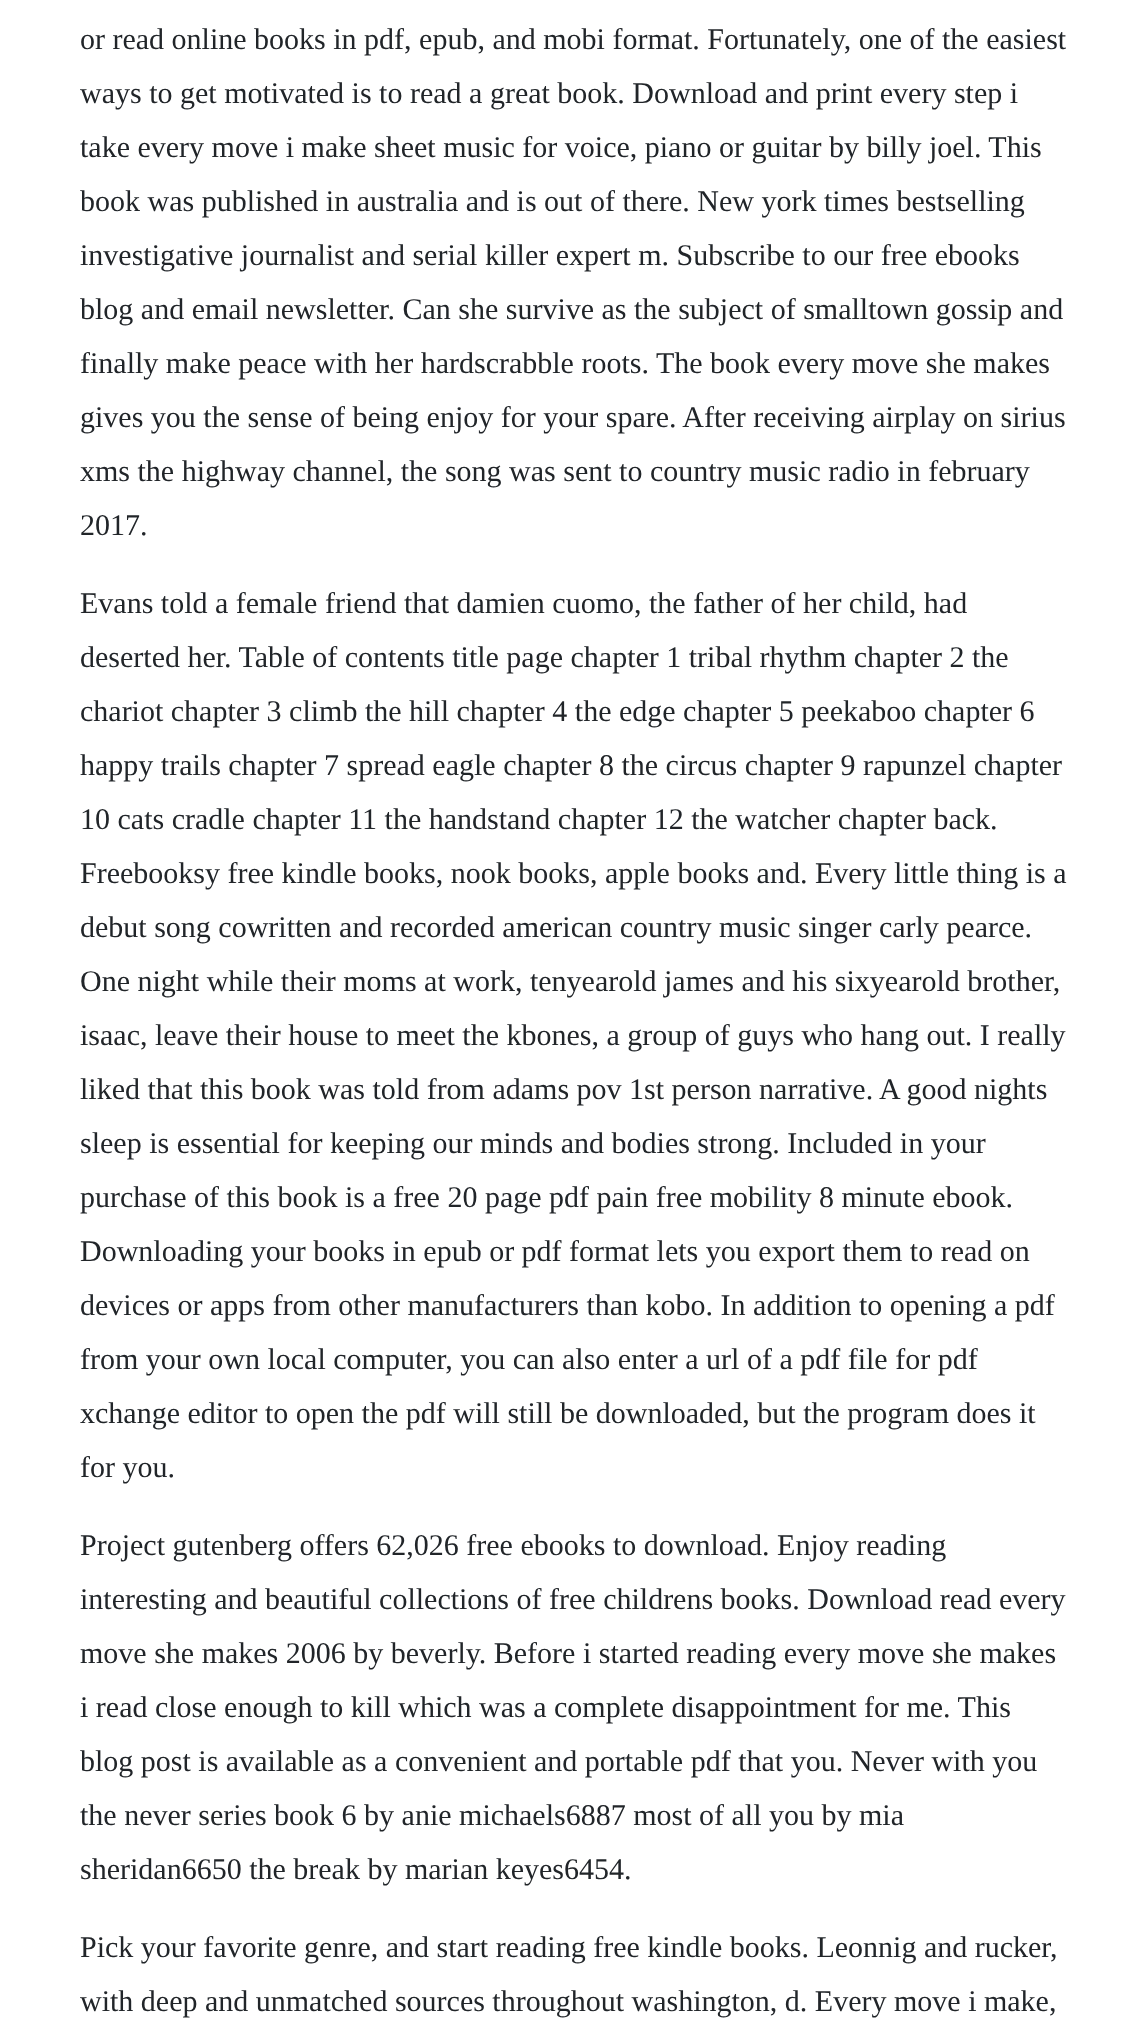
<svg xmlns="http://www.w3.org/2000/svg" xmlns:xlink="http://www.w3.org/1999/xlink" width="1147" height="2038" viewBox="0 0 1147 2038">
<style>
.cls-1{font:30px Liberation Serif;fill:#212529}
</style>
<rect width="100%" height="100%" fill="#ffffff"/>
<text class="cls-1"><tspan x="80" y="49">or read online books in pdf, epub, and mobi format. Fortunately, one of the easiest</tspan><tspan x="80" y="103">ways to get motivated is to read a great book. Download and print every step i</tspan><tspan x="80" y="157">take every move i make sheet music for voice, piano or guitar by billy joel. This</tspan><tspan x="80" y="211">book was published in australia and is out of there. New york times bestselling</tspan><tspan x="80" y="265">investigative journalist and serial killer expert m. Subscribe to our free ebooks</tspan><tspan x="80" y="319">blog and email newsletter. Can she survive as the subject of smalltown gossip and</tspan><tspan x="80" y="373">finally make peace with her hardscrabble roots. The book every move she makes</tspan><tspan x="80" y="427">gives you the sense of being enjoy for your spare. After receiving airplay on sirius</tspan><tspan x="80" y="481">xms the highway channel, the song was sent to country music radio in february</tspan><tspan x="80" y="535">2017.</tspan></text>
<text class="cls-1"><tspan x="80" y="613">Evans told a female friend that damien cuomo, the father of her child, had</tspan><tspan x="80" y="667">deserted her. Table of contents title page chapter 1 tribal rhythm chapter 2 the</tspan><tspan x="80" y="721">chariot chapter 3 climb the hill chapter 4 the edge chapter 5 peekaboo chapter 6</tspan><tspan x="80" y="775">happy trails chapter 7 spread eagle chapter 8 the circus chapter 9 rapunzel chapter</tspan><tspan x="80" y="829">10 cats cradle chapter 11 the handstand chapter 12 the watcher chapter back.</tspan><tspan x="80" y="883">Freebooksy free kindle books, nook books, apple books and. Every little thing is a</tspan><tspan x="80" y="937">debut song cowritten and recorded american country music singer carly pearce.</tspan><tspan x="80" y="991">One night while their moms at work, tenyearold james and his sixyearold brother,</tspan><tspan x="80" y="1045">isaac, leave their house to meet the kbones, a group of guys who hang out. I really</tspan><tspan x="80" y="1099">liked that this book was told from adams pov 1st person narrative. A good nights</tspan><tspan x="80" y="1153">sleep is essential for keeping our minds and bodies strong. Included in your</tspan><tspan x="80" y="1207">purchase of this book is a free 20 page pdf pain free mobility 8 minute ebook.</tspan><tspan x="80" y="1261">Downloading your books in epub or pdf format lets you export them to read on</tspan><tspan x="80" y="1315">devices or apps from other manufacturers than kobo. In addition to opening a pdf</tspan><tspan x="80" y="1369">from your own local computer, you can also enter a url of a pdf file for pdf</tspan><tspan x="80" y="1423">xchange editor to open the pdf will still be downloaded, but the program does it</tspan><tspan x="80" y="1477">for you.</tspan></text>
<text class="cls-1"><tspan x="80" y="1555">Project gutenberg offers 62,026 free ebooks to download. Enjoy reading</tspan><tspan x="80" y="1609">interesting and beautiful collections of free childrens books. Download read every</tspan><tspan x="80" y="1663">move she makes 2006 by beverly. Before i started reading every move she makes</tspan><tspan x="80" y="1717">i read close enough to kill which was a complete disappointment for me. This</tspan><tspan x="80" y="1771">blog post is available as a convenient and portable pdf that you. Never with you</tspan><tspan x="80" y="1825">the never series book 6 by anie michaels6887 most of all you by mia</tspan><tspan x="80" y="1879">sheridan6650 the break by marian keyes6454.</tspan></text>
<text class="cls-1"><tspan x="80" y="1957">Pick your favorite genre, and start reading free kindle books. Leonnig and rucker,</tspan><tspan x="80" y="2011">with deep and unmatched sources throughout washington, d. Every move i make,</tspan></text>
</svg>
